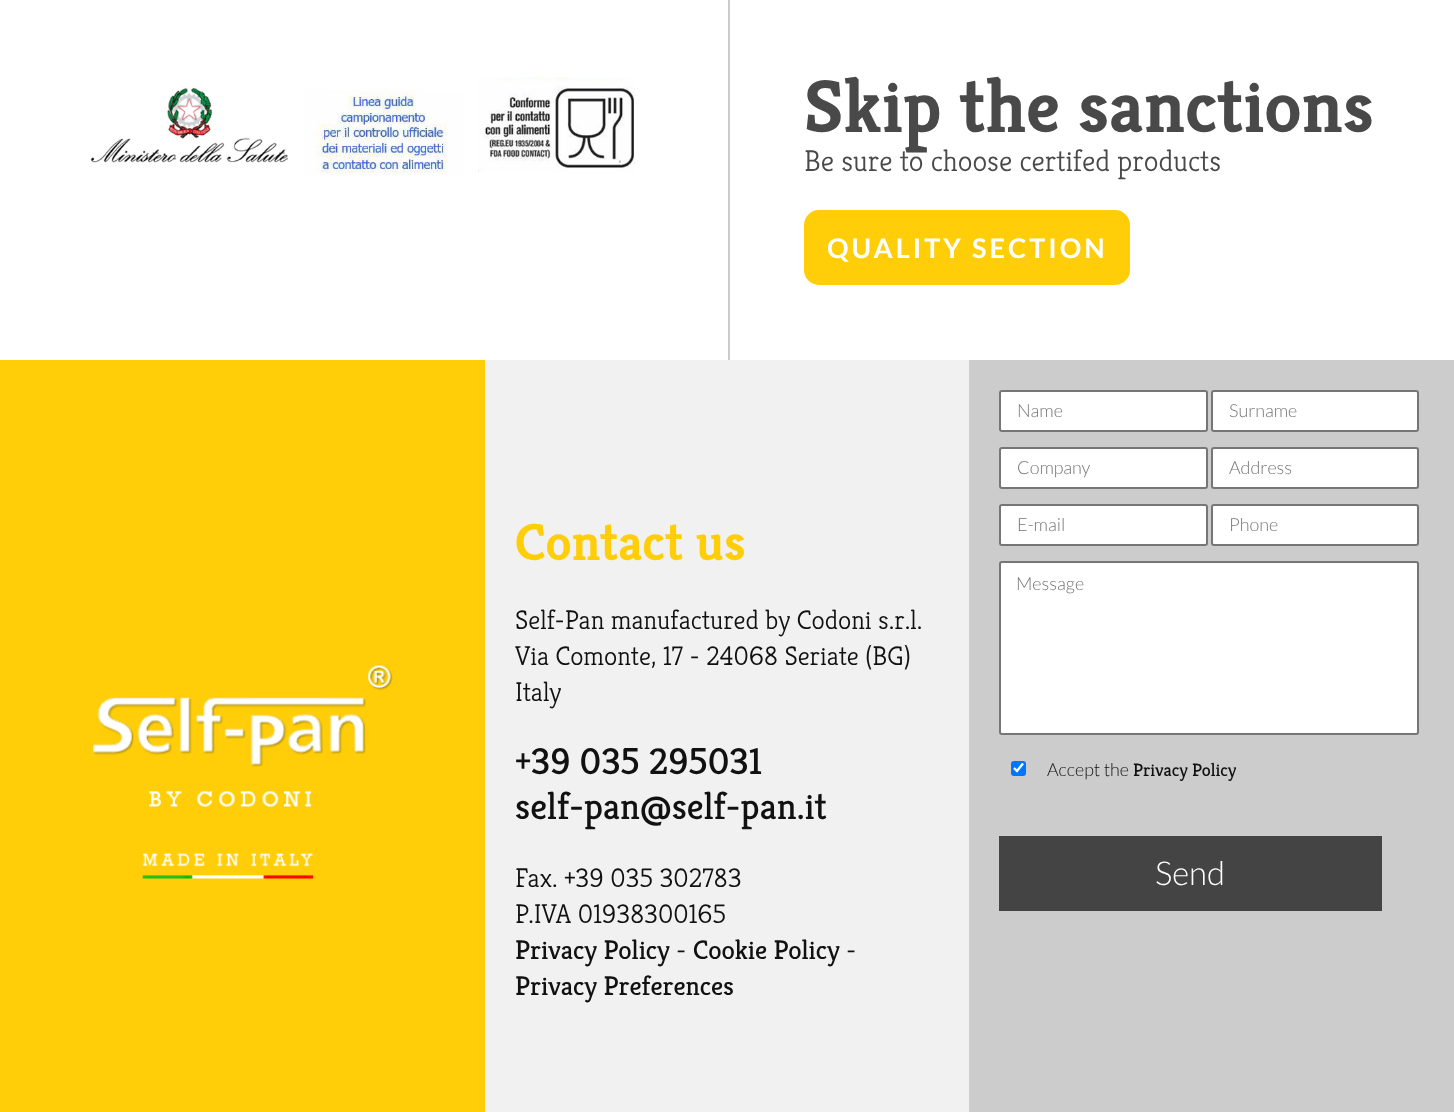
<svg xmlns="http://www.w3.org/2000/svg" xmlns:xlink="http://www.w3.org/1999/xlink" width="1454" height="1112" viewBox="0 0 1454 1112">
<style>
.cls-1{font:bold 75px Kreon;fill:#494949}
.cls-2{font:300 30px Kreon;fill:#494949}
.cls-3{font:bold 27px Lato;letter-spacing:3px;fill:#ffffff}
.cls-4{font:bold 52.5px Kreon;fill:#ffce09}
.cls-5{font:300 27px Kreon;fill:#111111}
.cls-6{font:37.5px Kreon;fill:#111111}
.cls-7{font:27px Kreon;fill:#111111}
.cls-8{font:300 18px Lato;fill:#757575}
.cls-9{font:300 18px Lato;fill:#111111}
.cls-10{font:18px Kreon;fill:#111111}
.cls-11{font:300 33px Lato;fill:#ffffff}
</style>
<rect width="100%" height="100%" fill="#ffffff"/>
<image xlink:href="image0.png" x="90" y="77" width="545" height="98"/>
<rect fill="#cccccc" x="728" y="0" width="2" height="360"/>
<rect fill="#ffce09" x="804" y="210" width="326" height="75" rx="15"/>
<rect fill="#ffce09" x="0" y="360" width="485" height="752"/>
<image xlink:href="image1.png" x="93" y="665" width="300" height="214"/>
<rect fill="#f1f1f1" x="485" y="360" width="484" height="752"/>
<rect fill="#cccccc" x="969" y="360" width="485" height="752"/>
<rect fill="#ffffff" stroke="#767676" stroke-width="2" x="1000" y="391" width="207" height="40" rx="2"/>
<rect fill="#ffffff" stroke="#767676" stroke-width="2" x="1212" y="391" width="206" height="40" rx="2"/>
<rect fill="#ffffff" stroke="#767676" stroke-width="2" x="1000" y="448" width="207" height="40" rx="2"/>
<rect fill="#ffffff" stroke="#767676" stroke-width="2" x="1212" y="448" width="206" height="40" rx="2"/>
<rect fill="#ffffff" stroke="#767676" stroke-width="2" x="1000" y="505" width="207" height="40" rx="2"/>
<rect fill="#ffffff" stroke="#767676" stroke-width="2" x="1212" y="505" width="206" height="40" rx="2"/>
<rect fill="#ffffff" stroke="#767676" stroke-width="2" x="1000" y="562" width="418" height="172" rx="2"/>
<rect fill="#0075ff" x="1011" y="761" width="15" height="15" rx="3"/>
<path fill="none" stroke="#ffffff" stroke-width="2.4" d="M1014 768L1017 771L1023 763.5"/>
<rect fill="#444444" x="999" y="836" width="383" height="75"/>
<text class="cls-1" x="804" y="132">Skip the sanctions</text>
<text class="cls-2" x="804" y="171">Be sure to choose certifed products</text>
<text class="cls-3" x="827" y="258">QUALITY SECTION</text>
<text class="cls-4" x="515" y="560">Contact us</text>
<text class="cls-5"><tspan x="515" y="629">Self-Pan manufactured by Codoni s.r.l.</tspan><tspan x="515" y="665">Via Comonte, 17 - 24068 Seriate (BG)</tspan><tspan x="515" y="701">Italy</tspan></text>
<text class="cls-6"><tspan x="515" y="774">+39 035 295031</tspan><tspan x="515" y="819">self-pan@self-pan.it</tspan></text>
<text class="cls-5"><tspan x="515" y="887">Fax. +39 035 302783</tspan><tspan x="515" y="923">P.IVA 01938300165</tspan></text>
<text class="cls-7" x="515" y="959">Privacy Policy</text>
<text class="cls-5" x="676" y="959">-</text>
<text class="cls-7" x="693" y="959">Cookie Policy</text>
<text class="cls-5" x="846" y="959">-</text>
<text class="cls-7" x="515" y="995">Privacy Preferences</text>
<text class="cls-8" x="1017" y="417">Name</text>
<text class="cls-8" x="1229" y="417">Surname</text>
<text class="cls-8" x="1017" y="474">Company</text>
<text class="cls-8" x="1229" y="474">Address</text>
<text class="cls-8" x="1017" y="531">E-mail</text>
<text class="cls-8" x="1229" y="531">Phone</text>
<text class="cls-8" x="1016" y="590">Message</text>
<text class="cls-9" x="1047" y="776">Accept the</text>
<text class="cls-10" x="1133" y="776">Privacy Policy</text>
<text class="cls-11" x="1155" y="885">Send</text>
</svg>
